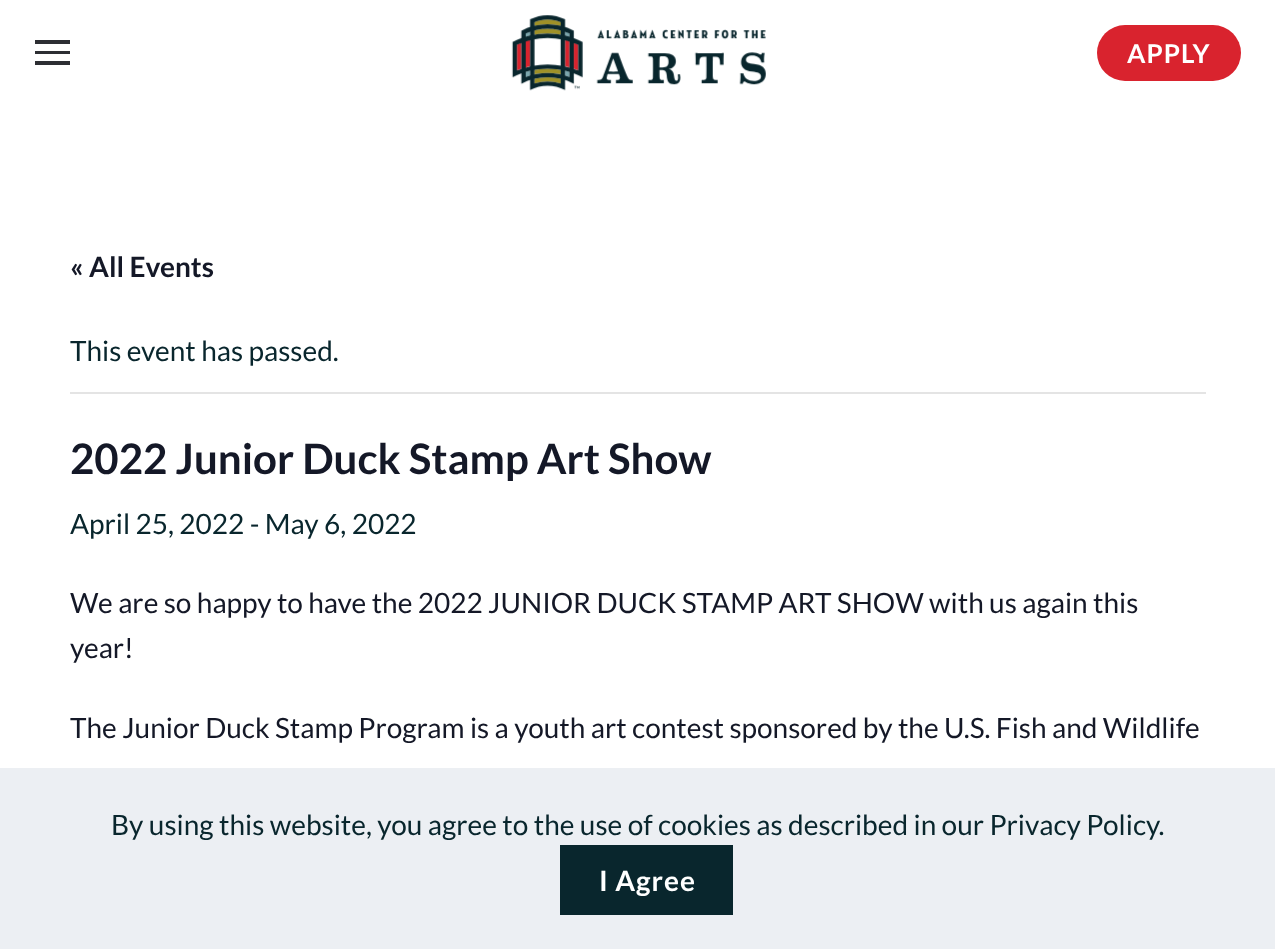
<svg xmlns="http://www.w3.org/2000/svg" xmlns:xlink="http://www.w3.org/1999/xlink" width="1275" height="949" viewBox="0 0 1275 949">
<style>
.cls-1{font:bold 26px Lato;letter-spacing:1px;fill:#ffffff}
.cls-2{font:bold 28px Lato;fill:#141827}
.cls-3{font:28px Lato;fill:#09262d}
.cls-4{font:bold 42px Lato;fill:#141827}
.cls-5{font:28px Lato;fill:#141827}
.cls-6{font:bold 28px Lato;letter-spacing:1px;fill:#ffffff}
</style>
<rect width="100%" height="100%" fill="#ffffff"/>
<rect fill="#2d2e33" x="35" y="40" width="35" height="4"/>
<rect fill="#2d2e33" x="35" y="51" width="35" height="3"/>
<rect fill="#2d2e33" x="35" y="61" width="35" height="4"/>
<image xlink:href="image0.png" x="511" y="15" width="255" height="76"/>
<rect fill="#d9232e" x="1097" y="25" width="144" height="56" rx="28"/>
<rect fill="#e4e4e4" x="70" y="392" width="1136" height="2"/>
<rect fill="#eceff3" x="0" y="768" width="1275" height="181"/>
<rect fill="#09262d" x="560" y="845" width="173" height="70"/>
<text class="cls-1" x="1127" y="63">APPLY</text>
<text class="cls-2" x="70" y="277">« All Events</text>
<text class="cls-3" x="70" y="361">This event has passed.</text>
<text class="cls-4" x="70" y="474">2022 Junior Duck Stamp Art Show</text>
<text class="cls-3" x="70" y="534">April 25, 2022 - May 6, 2022</text>
<text class="cls-5"><tspan x="70" y="613">We are so happy to have the 2022 JUNIOR DUCK STAMP ART SHOW with us again this</tspan><tspan x="70" y="658">year!</tspan></text>
<text class="cls-5" x="70" y="738">The Junior Duck Stamp Program is a youth art contest sponsored by the U.S. Fish and Wildlife</text>
<text class="cls-3" x="111" y="835">By using this website, you agree to the use of cookies as described in our Privacy Policy.</text>
<text class="cls-6" x="599" y="891">I Agree</text>
</svg>
